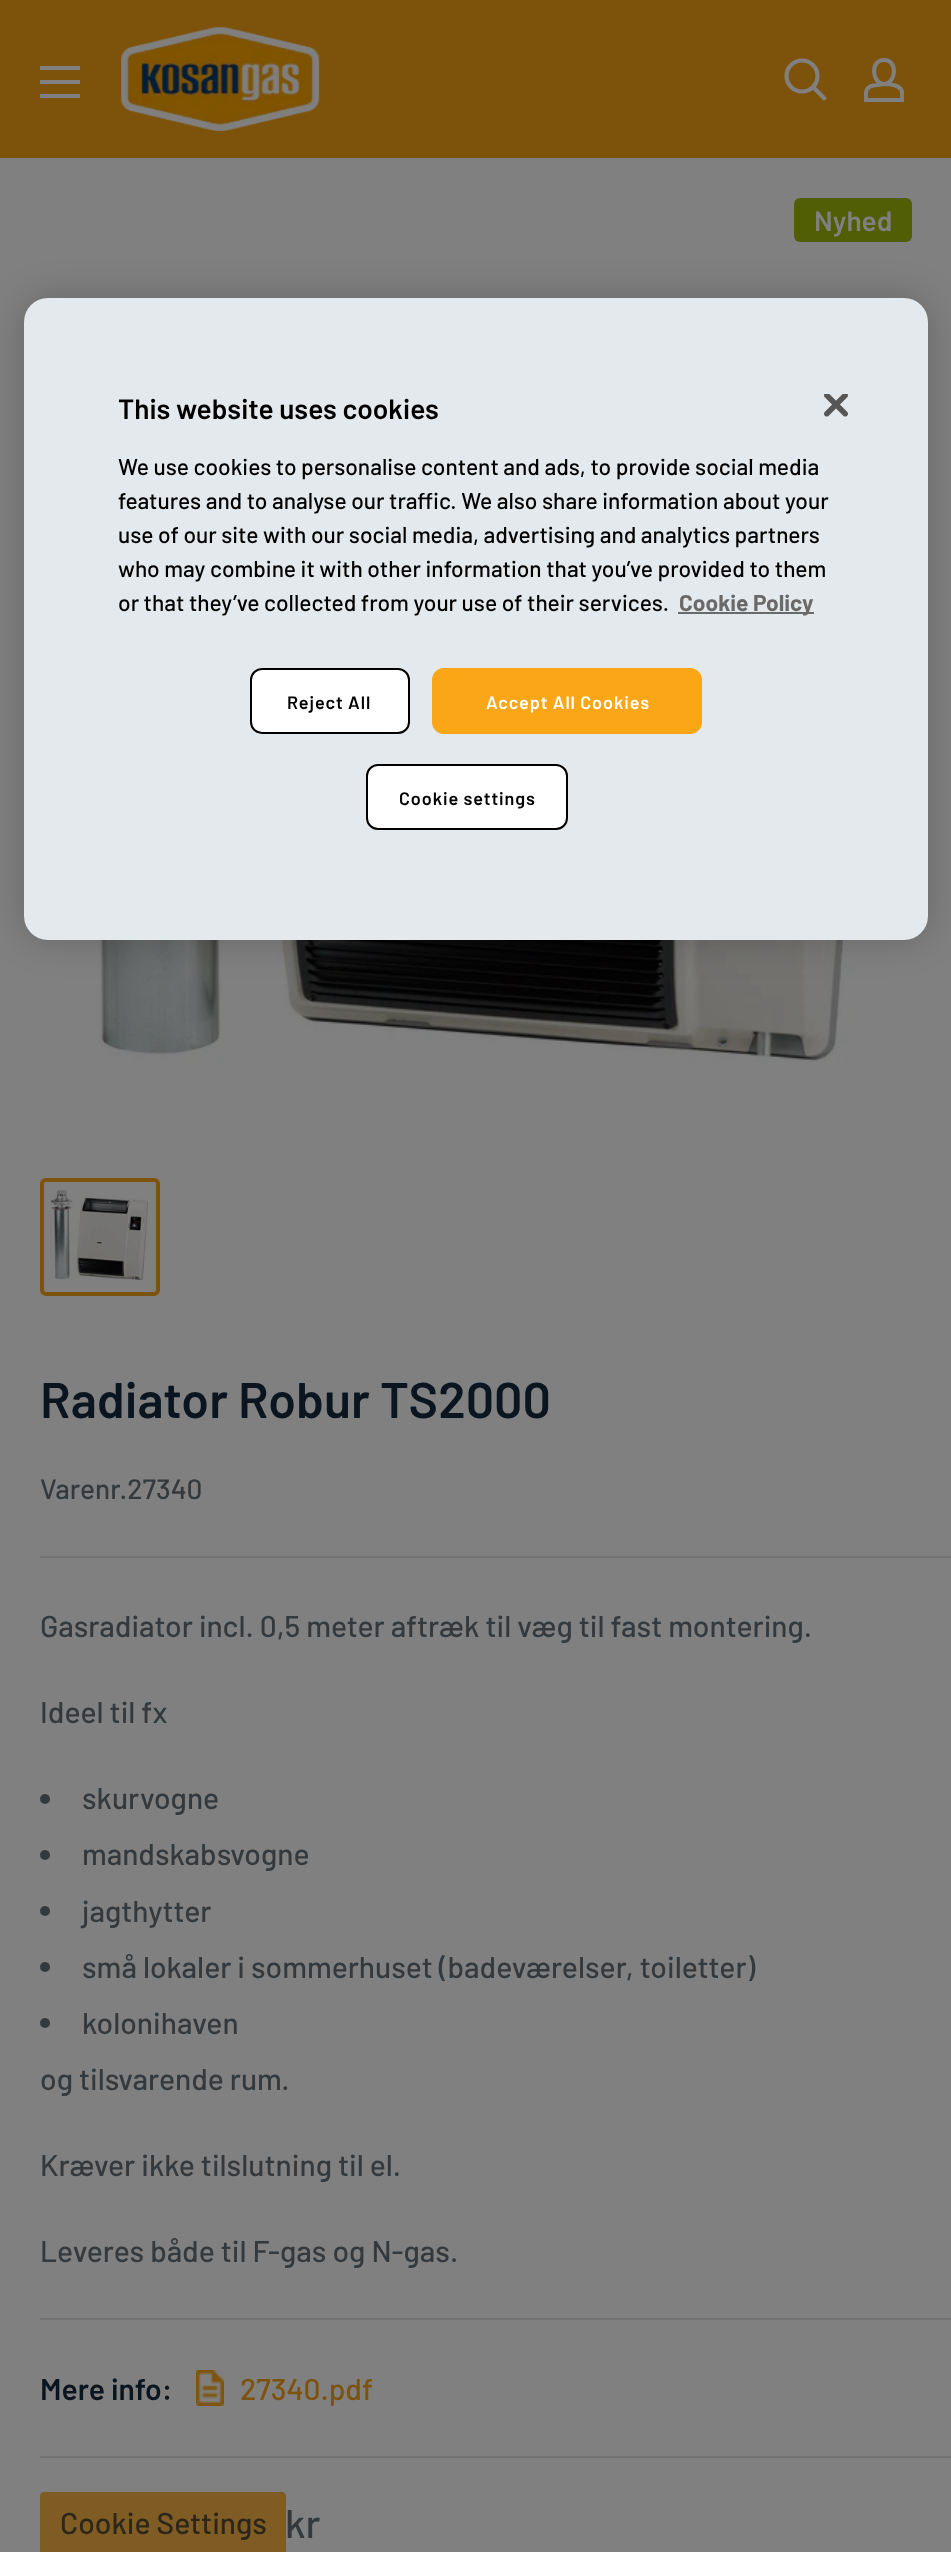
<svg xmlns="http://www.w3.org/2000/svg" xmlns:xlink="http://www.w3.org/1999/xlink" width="951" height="2552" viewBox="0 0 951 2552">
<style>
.cls-1{font:600 28px Barlow;fill:#808080}
.cls-2{font:600 50px Barlow;fill:#0a151f}
.cls-3{font:500 28px Barlow;fill:#34393d}
.cls-4{font:500 30px Barlow;fill:#34393d}
.cls-5{font:600 30px Barlow;fill:#0a151f}
.cls-6{font:500 30px Barlow;fill:#7d530b}
.cls-7{font:500 40px Barlow;fill:#34393d}
.cls-8{font:600 28px Barlow;fill:#000000}
.cls-9{font:500 22.75px Barlow;fill:#000000}
.cls-10{font:bold 22.75px Barlow;fill:#696969}
.cls-11{font:600 18px Barlow;letter-spacing:0.9px;fill:#000000}
.cls-12{font:600 18px Barlow;letter-spacing:0.9px;fill:#ffffff}
.cls-13{font:500 30px Barlow;fill:#2d261b}
</style>
<rect width="100%" height="100%" fill="#808080"/>
<rect fill="#7d530b" x="0" y="0" width="951" height="158"/>
<path fill="#808080" fill-rule="evenodd" d="M40 94H80V98H40ZM40 66H80V70H40ZM40 80H80V84H40Z"/>
<image xlink:href="image0.png" x="121" y="27" width="199" height="104"/>
<path fill="none" stroke="#808080" stroke-width="4.2" stroke-linecap="square" d="M824 98L813.5 87.5"/>
<circle fill="none" stroke="#808080" stroke-width="4.2" cx="802" cy="76" r="15.5"/>
<path fill="none" stroke="#808080" stroke-width="4" d="M884 84C888 84 891.5 84.5 895 85.5C903.5 88 902 92.5 902 100H866C866 92 864.5 87.5 873.5 85.5ZM884 84C872 84 869.5 60 884 60C898.5 60 896 84 884 84Z"/>
<rect fill="#515e06" x="794" y="198" width="118" height="44" rx="6"/>
<image xlink:href="image1.png" x="64" y="940" width="816" height="122"/>
<rect fill="none" stroke="#7d530b" stroke-width="4" x="42" y="1180" width="116" height="114" rx="4"/>
<image xlink:href="image2.png" x="50" y="1190" width="98" height="91"/>
<rect fill="#717272" x="40" y="1556" width="911" height="2"/>
<circle fill="#34393d" cx="45" cy="1799" r="5"/>
<circle fill="#34393d" cx="45" cy="1855" r="5"/>
<circle fill="#34393d" cx="45" cy="1911" r="5"/>
<circle fill="#34393d" cx="45" cy="1967" r="5"/>
<circle fill="#34393d" cx="45" cy="2023" r="5"/>
<rect fill="#717272" x="40" y="2318" width="911" height="2"/>
<image xlink:href="image3.png" x="196" y="2370" width="28" height="36"/>
<rect fill="#717272" x="40" y="2456" width="911" height="2"/>
<rect fill="#000000" fill-opacity="0.2" filter="blur(18px)" x="24" y="298" width="904" height="642" rx="24"/>
<rect fill="#e3e9ec" x="24" y="298" width="904" height="642" rx="24"/>
<rect fill="#696969" x="678" y="612" width="136" height="2"/>
<image xlink:href="image4.png" x="824" y="394" width="24" height="23"/>
<rect fill="#ffffff" stroke="#000000" stroke-width="2" x="251" y="669" width="158" height="64" rx="11"/>
<rect fill="#faa616" stroke="#faa616" stroke-width="2" x="433" y="669" width="268" height="64" rx="11"/>
<rect fill="#ffffff" stroke="#000000" stroke-width="2" x="367" y="765" width="200" height="64" rx="11"/>
<path fill="#7d530b" fill-opacity="0.8" d="M44 2492H282C284 2492 286 2494 286 2496V2552H40V2496C40 2494 42 2492 44 2492Z"/>
<text class="cls-1" x="814" y="231">Nyhed</text>
<text class="cls-2" x="40" y="1418">Radiator Robur TS2000</text>
<text class="cls-3" x="40" y="1499">Varenr.27340</text>
<text class="cls-4" x="40" y="1637">Gasradiator incl. 0,5 meter aftræk til væg til fast montering.</text>
<text class="cls-4" x="40" y="1723">Ideel til fx</text>
<text class="cls-4"><tspan x="82" y="1809">skurvogne</tspan><tspan x="82" y="1865">mandskabsvogne</tspan><tspan x="82" y="1922">jagthytter</tspan><tspan x="82" y="1978">små lokaler i sommerhuset (badeværelser, toiletter)</tspan><tspan x="82" y="2034">kolonihaven</tspan></text>
<text class="cls-4" x="40" y="2090">og tilsvarende rum.</text>
<text class="cls-4" x="40" y="2176">Kræver ikke tilslutning til el.</text>
<text class="cls-4" x="40" y="2262">Leveres både til F-gas og N-gas.</text>
<text class="cls-5" x="40" y="2400">Mere info:</text>
<text class="cls-6" x="240" y="2400">27340.pdf</text>
<text class="cls-7" x="285" y="2538">kr</text>
<text class="cls-8" x="118" y="419">This website uses cookies</text>
<text class="cls-9"><tspan x="118" y="475">We use cookies to personalise content and ads, to provide social media</tspan><tspan x="118" y="509">features and to analyse our traffic. We also share information about your</tspan><tspan x="118" y="543">use of our site with our social media, advertising and analytics partners</tspan><tspan x="118" y="577">who may combine it with other information that you’ve provided to them</tspan><tspan x="118" y="611">or that they’ve collected from your use of their services.</tspan></text>
<text class="cls-10" x="679" y="611">Cookie Policy</text>
<text class="cls-11" x="287" y="709">Reject All</text>
<text class="cls-12" x="486" y="709">Accept All Cookies</text>
<text class="cls-11" x="399" y="805">Cookie settings</text>
<text class="cls-13" x="60" y="2534">Cookie Settings</text>
</svg>
